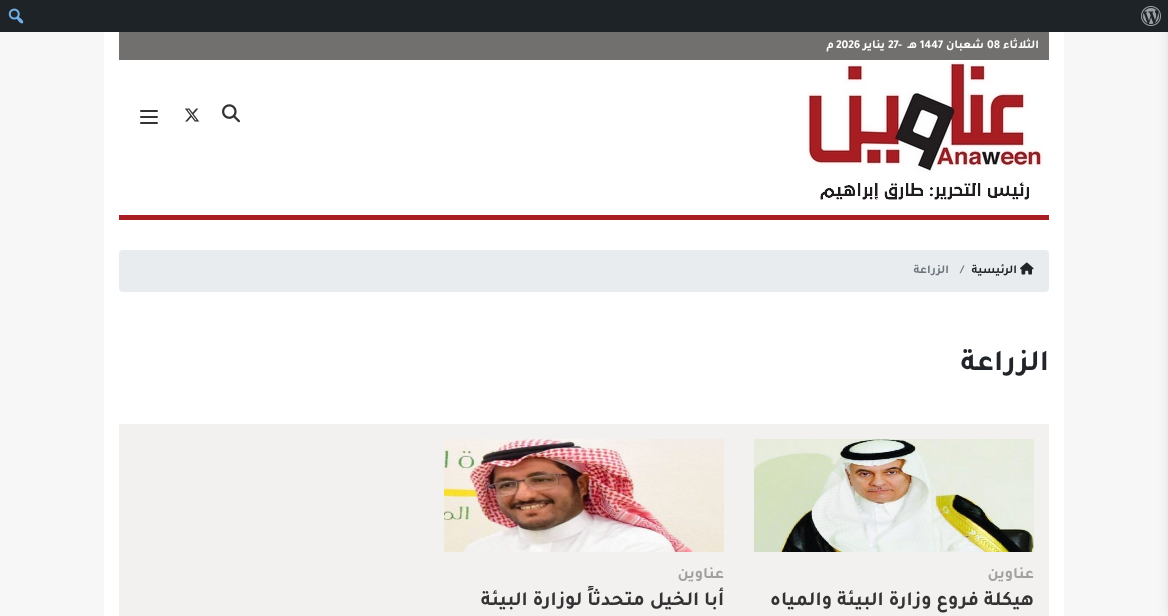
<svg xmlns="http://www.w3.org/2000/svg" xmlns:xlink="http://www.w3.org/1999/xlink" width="1168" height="616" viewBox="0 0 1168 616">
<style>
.cls-1{font:bold 12px Tajawal;direction:rtl;fill:#ffffff}
.cls-2{font:bold 12px Tajawal;fill:#ffffff}
.cls-3{font:bold 12px Tajawal;direction:rtl;fill:#212529}
.cls-4{font:bold 12px Tajawal;fill:#6c757d}
.cls-5{font:bold 12px Tajawal;direction:rtl;fill:#6c757d}
.cls-6{font:bold 30px Tajawal;direction:rtl;fill:#212529}
.cls-7{font:bold 16px Tajawal;direction:rtl;fill:#a19f9f}
.cls-8{font:bold 20px Tajawal;direction:rtl;fill:#333333}
</style>
<defs>
<clipPath id="clip1"><rect x="444" y="586" width="280" height="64"/></clipPath>
</defs>
<rect width="100%" height="100%" fill="#f7f7f7"/>
<rect fill="#211717" fill-opacity="0.68" filter="blur(10px)" x="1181" y="0" width="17" height="616"/>
<rect fill="#1d2327" x="0" y="0" width="1168" height="32"/>
<image xlink:href="image0.png" x="1141" y="6" width="20" height="20"/>
<image xlink:href="image1.png" x="8" y="8" width="16" height="16"/>
<rect fill="#ffffff" x="104" y="32" width="960" height="584"/>
<rect fill="#71706e" x="119" y="32" width="930" height="28"/>
<rect fill="#a81d22" x="119" y="215" width="930" height="5"/>
<image xlink:href="image2.png" x="807" y="62" width="236" height="138"/>
<image xlink:href="image3.png" x="222" y="104" width="18" height="19"/>
<image xlink:href="image4.png" x="185" y="108" width="15" height="14"/>
<rect fill="#333333" x="140" y="110" width="18" height="2" rx="1"/>
<rect fill="#333333" x="140" y="116" width="18" height="2" rx="1"/>
<rect fill="#333333" x="140" y="122" width="18" height="2" rx="1"/>
<rect fill="#e9ecef" x="119" y="250" width="930" height="42" rx="4"/>
<image xlink:href="image5.png" x="1020" y="262" width="14" height="13"/>
<rect fill="#f3f1f0" x="119" y="424" width="930" height="192"/>
<image xlink:href="image6.png" x="754" y="439" width="280" height="113"/>
<image xlink:href="image7.png" x="444" y="439" width="280" height="113"/>
<text class="cls-1" x="1039" y="48">الثلاثاء</text>
<text class="cls-2" x="987" y="48">08</text>
<text class="cls-1" x="984" y="48">شعبان</text>
<text class="cls-2" x="920" y="48">1447</text>
<text class="cls-1" x="917" y="48">هـ</text>
<text class="cls-2" x="888" y="48">27-</text>
<text class="cls-1" x="885" y="48">يناير</text>
<text class="cls-2" x="836" y="48">2026</text>
<text class="cls-1" x="834" y="48">م</text>
<text class="cls-3" x="1017" y="273">الرئيسية</text>
<text class="cls-4" x="960" y="273">/</text>
<text class="cls-5" x="949" y="273">الزراعة</text>
<text class="cls-6" x="1049" y="370">الزراعة</text>
<text class="cls-7" x="1034" y="578">عناوين</text>
<text class="cls-8" x="1034" y="605">هيكلة فروع وزارة البيئة والمياه</text>
<text class="cls-7" x="724" y="578">عناوين</text>
<g clip-path="url(#clip1)">
<text class="cls-8" x="724" y="605">أبا الخيل متحدثاً لوزارة البيئة</text>
</g>
</svg>
